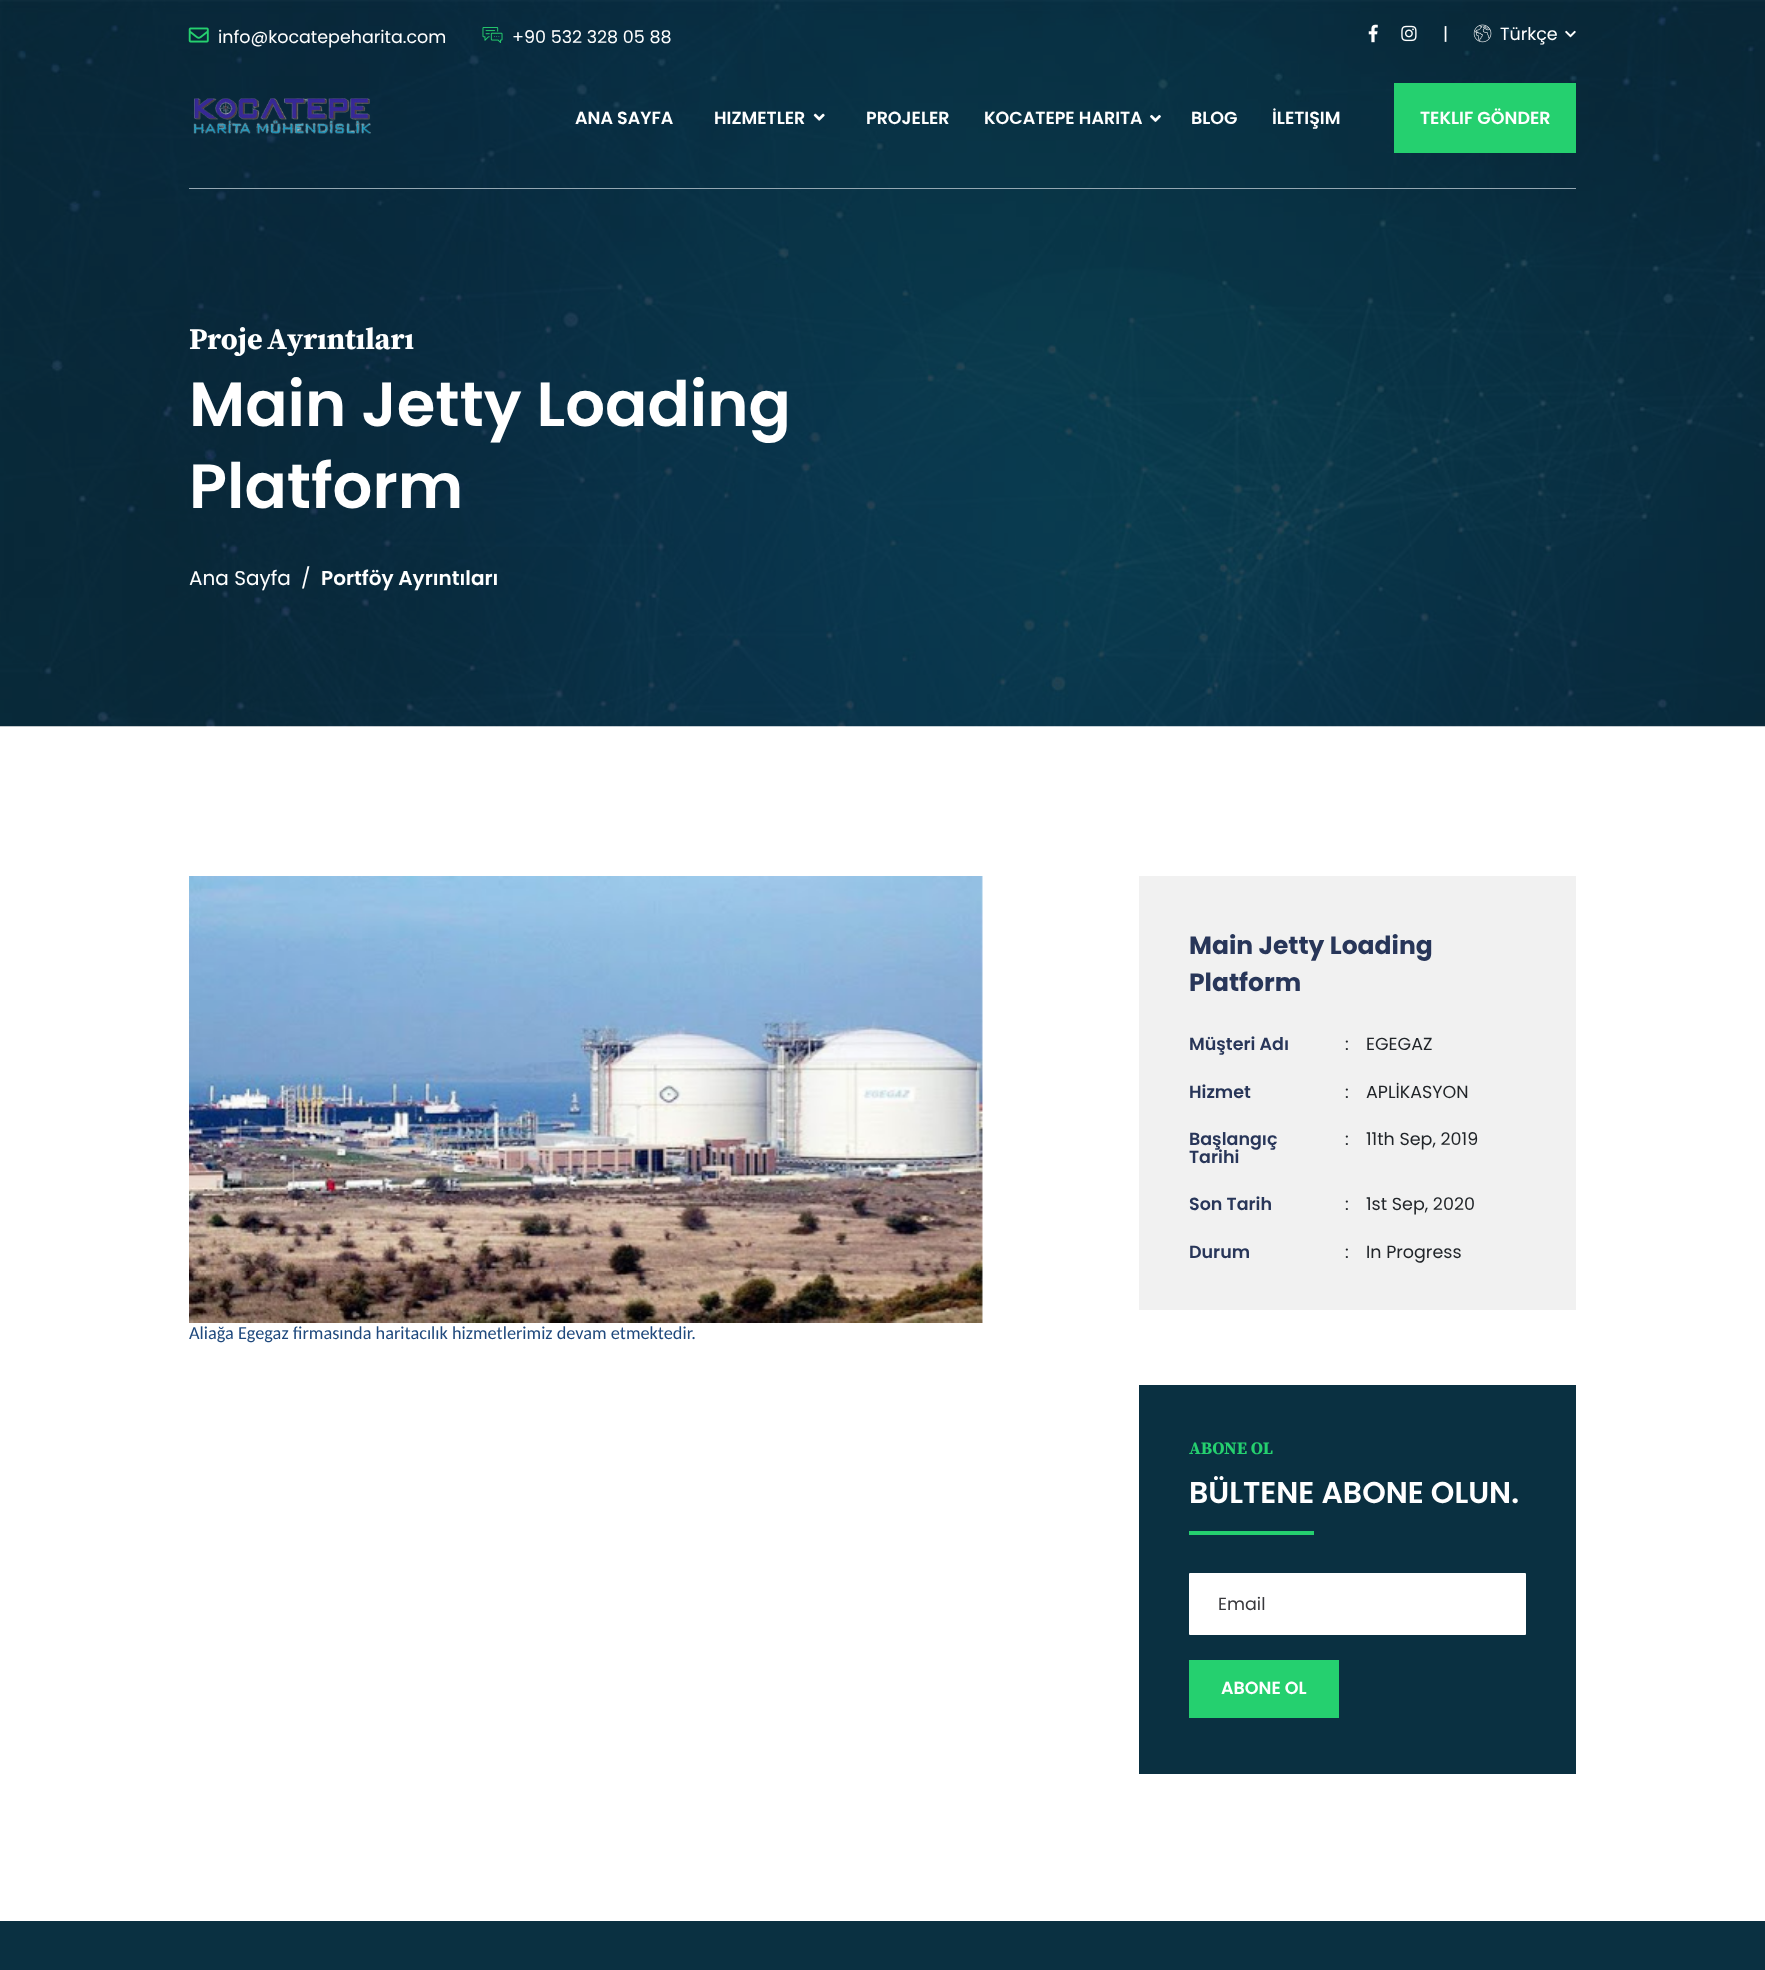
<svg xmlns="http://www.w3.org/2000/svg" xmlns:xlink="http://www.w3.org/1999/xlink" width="1765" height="1970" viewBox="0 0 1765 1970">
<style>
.cls-1{font:17.5px Poppins;fill:#ffffff}
.cls-2{font:600 17.5px Poppins;fill:#ffffff}
.cls-3{font:bold 30px Source Serif Pro;fill:#ffffff}
.cls-4{font:600 62.5px Poppins;fill:#ffffff}
.cls-5{font:20px Poppins;fill:#ffffff}
.cls-6{font:600 20px Poppins;fill:#ffffff}
.cls-7{font:18.3px Carlito;fill:#1f497d}
.cls-8{font:bold 25px Poppins;fill:#283659}
.cls-9{font:600 17.5px Poppins;fill:#283659}
.cls-10{font:17.5px Poppins;fill:#212529}
.cls-11{font:bold 17.5px Source Serif Pro;fill:#25d06f}
.cls-12{font:600 30px Poppins;fill:#ffffff}
.cls-13{font:17.5px Poppins;fill:#38383c}
</style>
<rect width="100%" height="100%" fill="#ffffff"/>
<image xlink:href="image9.png" x="0" y="0" width="1765" height="727"/>
<image xlink:href="image0.png" x="188" y="27" width="21" height="16"/>
<image xlink:href="image1.png" x="482" y="27" width="21" height="16"/>
<image xlink:href="image2.png" x="1368" y="24" width="10" height="19"/>
<image xlink:href="image3.png" x="1401" y="25" width="16" height="17"/>
<image xlink:href="image4.png" x="1473" y="24" width="19" height="19"/>
<image xlink:href="image5.png" x="1565" y="30" width="11" height="8"/>
<rect fill="#94a7b2" x="189" y="188" width="1387" height="1"/>
<image xlink:href="image6.png" x="193" y="98" width="178" height="36"/>
<image xlink:href="image7.png" x="813" y="113" width="12" height="8"/>
<image xlink:href="image8.png" x="1150" y="115" width="11" height="7"/>
<rect fill="#25d06f" x="1394" y="83" width="182" height="70"/>
<image xlink:href="image10.png" x="189" y="876" width="794" height="447"/>
<rect fill="#f1f1f1" x="1139" y="876" width="437" height="434"/>
<rect fill="#0a3041" x="1139" y="1385" width="437" height="389"/>
<rect fill="#25d06f" x="1189" y="1531" width="125" height="4"/>
<rect fill="#ffffff" x="1189" y="1573" width="337" height="62" rx="1"/>
<rect fill="#25d06f" x="1189" y="1660" width="150" height="58"/>
<rect fill="#0a3041" x="0" y="1921" width="1765" height="49"/>
<text class="cls-1" x="218" y="43">info@kocatepeharita.com</text>
<text class="cls-1" x="512" y="43">+90 532 328 05 88</text>
<text class="cls-1" x="1443" y="40">|</text>
<text class="cls-1" x="1500" y="40">Türkçe</text>
<text class="cls-2" x="575" y="124">ANA SAYFA</text>
<text class="cls-2" x="714" y="124">HIZMETLER</text>
<text class="cls-2" x="866" y="124">PROJELER</text>
<text class="cls-2" x="984" y="124">KOCATEPE HARITA</text>
<text class="cls-2" x="1191" y="124">BLOG</text>
<text class="cls-2" x="1272" y="124">İLETIŞIM</text>
<text class="cls-2" x="1420" y="124">TEKLIF GÖNDER</text>
<text class="cls-3" x="189" y="349" word-spacing="-2">Proje Ayrıntıları</text>
<text class="cls-4"><tspan x="189" y="426">Main Jetty Loading</tspan><tspan x="189" y="508">Platform</tspan></text>
<text class="cls-5" x="189" y="585">Ana Sayfa</text>
<text class="cls-5" x="301" y="585">/</text>
<text class="cls-6" x="321" y="585">Portföy Ayrıntıları</text>
<text class="cls-7" x="189" y="1339">Aliağa Egegaz firmasında haritacılık hizmetlerimiz devam etmektedir.</text>
<text class="cls-8"><tspan x="1189" y="954">Main Jetty Loading</tspan><tspan x="1189" y="991">Platform</tspan></text>
<text class="cls-9" x="1189" y="1050">Müşteri Adı</text>
<text class="cls-10" x="1345" y="1050">:</text>
<text class="cls-10" x="1366" y="1050">EGEGAZ</text>
<text class="cls-9" x="1189" y="1098">Hizmet</text>
<text class="cls-10" x="1345" y="1098">:</text>
<text class="cls-10" x="1366" y="1098">APLİKASYON</text>
<text class="cls-9"><tspan x="1189" y="1145">Başlangıç</tspan><tspan x="1189" y="1163">Tarihi</tspan></text>
<text class="cls-10" x="1345" y="1145">:</text>
<text class="cls-10" x="1366" y="1145">11th Sep, 2019</text>
<text class="cls-9" x="1189" y="1210">Son Tarih</text>
<text class="cls-10" x="1345" y="1210">:</text>
<text class="cls-10" x="1366" y="1210">1st Sep, 2020</text>
<text class="cls-9" x="1189" y="1258">Durum</text>
<text class="cls-10" x="1345" y="1258">:</text>
<text class="cls-10" x="1366" y="1258">In Progress</text>
<text class="cls-11" x="1189" y="1454">ABONE OL</text>
<text class="cls-12" x="1189" y="1503">BÜLTENE ABONE OLUN.</text>
<text class="cls-13" x="1218" y="1610">Email</text>
<text class="cls-2" x="1221" y="1694">ABONE OL</text>
</svg>
